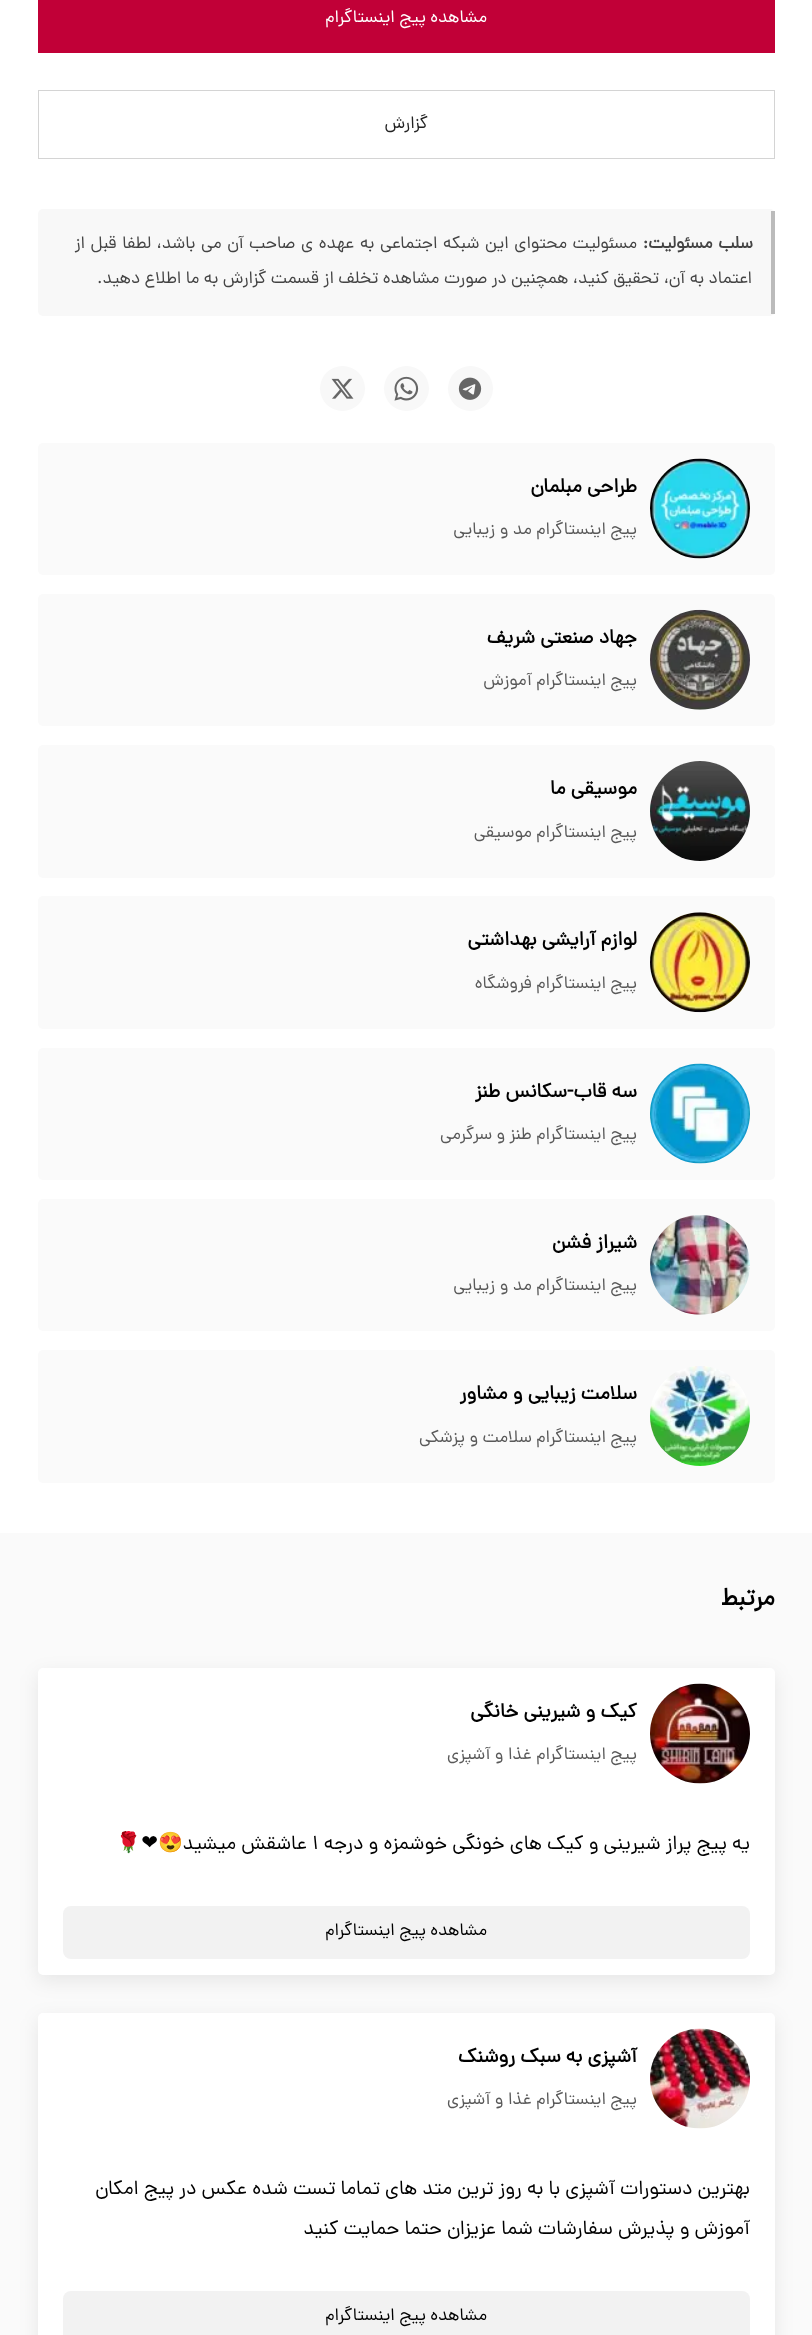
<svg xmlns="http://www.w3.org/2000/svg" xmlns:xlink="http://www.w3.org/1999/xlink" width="812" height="2335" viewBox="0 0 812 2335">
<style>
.cls-1{font:17.5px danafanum;direction:rtl;fill:#ffffff}
.cls-2{font:17.5px danafanum;direction:rtl;fill:#222222}
.cls-3{font:bold 17.5px danafanum;direction:rtl;fill:#444444}
.cls-4{font:17.5px danafanum;direction:rtl;fill:#444444}
.cls-5{font:bold 20px danafanum;direction:rtl;fill:#000000}
.cls-6{font:17.5px danafanum;direction:rtl;fill:#595959}
.cls-7{font:bold 25px danafanum;direction:rtl;fill:#000000}
.cls-8{font:20px danafanum;direction:rtl;fill:#000000}
.cls-9{font:20px danafanum;fill:#000000}
.cls-10{font:20px Noto Color Emoji;direction:rtl;fill:#000000}
.cls-11{font:20px DejaVu Sans;direction:rtl;fill:#000000}
.cls-12{font:17.5px danafanum;direction:rtl;fill:#000000}
</style>
<rect width="100%" height="100%" fill="#ffffff"/>
<rect fill="#c10037" x="38" y="0" width="737" height="53"/>
<rect fill="none" stroke="#d4d4d4" x="38.5" y="90.5" width="736" height="68"/>
<rect fill="#f8f8f8" x="38" y="209" width="737" height="107" rx="5"/>
<rect fill="#bbbbbb" x="771" y="211" width="4" height="103"/>
<circle fill="#f8f8f8" cx="470.5" cy="388.5" r="22.5"/>
<image xlink:href="image0.png" x="458" y="377" width="24" height="23"/>
<circle fill="#f8f8f8" cx="406.5" cy="388.5" r="22.5"/>
<image xlink:href="image1.png" x="394" y="376" width="25" height="25"/>
<circle fill="#f8f8f8" cx="342.5" cy="388.5" r="22.5"/>
<image xlink:href="image2.png" x="331" y="378" width="23" height="21"/>
<rect fill="#fafafa" x="38" y="443" width="737" height="132" rx="5"/>
<image xlink:href="image3.png" x="650" y="458" width="100" height="101"/>
<rect fill="#fafafa" x="38" y="594" width="737" height="132" rx="5"/>
<image xlink:href="image4.png" x="650" y="609" width="100" height="101"/>
<rect fill="#fafafa" x="38" y="745" width="737" height="133" rx="5"/>
<image xlink:href="image5.png" x="650" y="761" width="100" height="100"/>
<rect fill="#fafafa" x="38" y="896" width="737" height="133" rx="5"/>
<image xlink:href="image6.png" x="650" y="912" width="100" height="101"/>
<rect fill="#fafafa" x="38" y="1048" width="737" height="132" rx="5"/>
<image xlink:href="image7.png" x="650" y="1063" width="100" height="101"/>
<rect fill="#fafafa" x="38" y="1199" width="737" height="132" rx="5"/>
<image xlink:href="image8.png" x="650" y="1215" width="100" height="100"/>
<rect fill="#fafafa" x="38" y="1350" width="737" height="133" rx="5"/>
<image xlink:href="image9.png" x="650" y="1366" width="100" height="100"/>
<rect fill="#fafafa" x="0" y="1533" width="812" height="802"/>
<rect fill="#000000" fill-opacity="0.08" filter="blur(9.5px)" x="38" y="1674" width="737" height="307" rx="5"/>
<rect fill="#ffffff" x="38" y="1668" width="737" height="307" rx="5"/>
<image xlink:href="image10.png" x="650" y="1683" width="100" height="101"/>
<rect fill="#f2f2f2" x="63" y="1906" width="687" height="53" rx="8"/>
<rect fill="#000000" fill-opacity="0.08" filter="blur(9.5px)" x="38" y="2019" width="737" height="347" rx="5"/>
<rect fill="#ffffff" x="38" y="2013" width="737" height="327" rx="5"/>
<image xlink:href="image11.png" x="650" y="2028" width="100" height="101"/>
<rect fill="#f2f2f2" x="63" y="2291" width="687" height="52" rx="8"/>
<text class="cls-1" x="487" y="22">مشاهده پیج اینستاگرام</text>
<text class="cls-2" x="428" y="128">گزارش</text>
<text class="cls-3" x="753" y="248" word-spacing="1">سلب مسئولیت:</text>
<text class="cls-4" x="637" y="248" word-spacing="1.1">مسئولیت محتوای این شبکه اجتماعی به عهده ی صاحب آن می باشد، لطفا قبل از</text>
<text class="cls-4" x="752" y="283">اعتماد به آن، تحقیق کنید، همچنین در صورت مشاهده تخلف از قسمت گزارش به ما اطلاع دهید.</text>
<text class="cls-5" x="637" y="492">طراحی مبلمان</text>
<text class="cls-6" x="637" y="534">پیج اینستاگرام مد و زیبایی</text>
<text class="cls-5" x="637" y="643">جهاد صنعتی شریف</text>
<text class="cls-6" x="637" y="685">پیج اینستاگرام آموزش</text>
<text class="cls-5" x="637" y="794">موسیقی ما</text>
<text class="cls-6" x="637" y="837">پیج اینستاگرام موسیقی</text>
<text class="cls-5" x="637" y="945">لوازم آرایشی بهداشتی</text>
<text class="cls-6" x="637" y="988">پیج اینستاگرام فروشگاه</text>
<text class="cls-5" x="637" y="1097">سه قاب-سکانس طنز</text>
<text class="cls-6" x="637" y="1139">پیج اینستاگرام طنز و سرگرمی</text>
<text class="cls-5" x="637" y="1248">شیراز فشن</text>
<text class="cls-6" x="637" y="1290">پیج اینستاگرام مد و زیبایی</text>
<text class="cls-5" x="637" y="1399">سلامت زیبایی و مشاور</text>
<text class="cls-6" x="637" y="1442">پیج اینستاگرام سلامت و پزشکی</text>
<text class="cls-7" x="775" y="1605">مرتبط</text>
<text class="cls-5" x="637" y="1717">کیک و شیرینی خانگی</text>
<text class="cls-6" x="637" y="1759">پیج اینستاگرام غذا و آشپزی</text>
<text class="cls-8" x="750" y="1849">یه پیج پراز شیرینی و کیک های خونگی خوشمزه و درجه</text>
<text class="cls-9" x="312" y="1849">۱</text>
<text class="cls-8" x="307" y="1849">عاشقش میشید</text>
<text class="cls-10" x="183" y="1849">😍</text>
<text class="cls-11" x="158" y="1849">❤</text>
<text class="cls-10" x="141" y="1849">🌹</text>
<text class="cls-12" x="487" y="1935">مشاهده پیج اینستاگرام</text>
<text class="cls-5" x="637" y="2062">آشپزی به سبک روشنک</text>
<text class="cls-6" x="637" y="2104">پیج اینستاگرام غذا و آشپزی</text>
<text class="cls-8" x="750" y="2194">بهترین دستورات آشپزی با به روز ترین متد های تماما تست شده عکس در پیج امکان</text>
<text class="cls-8" x="750" y="2234">آموزش و پذیرش سفارشات شما عزیزان حتما حمایت کنید</text>
<text class="cls-12" x="487" y="2320">مشاهده پیج اینستاگرام</text>
</svg>
